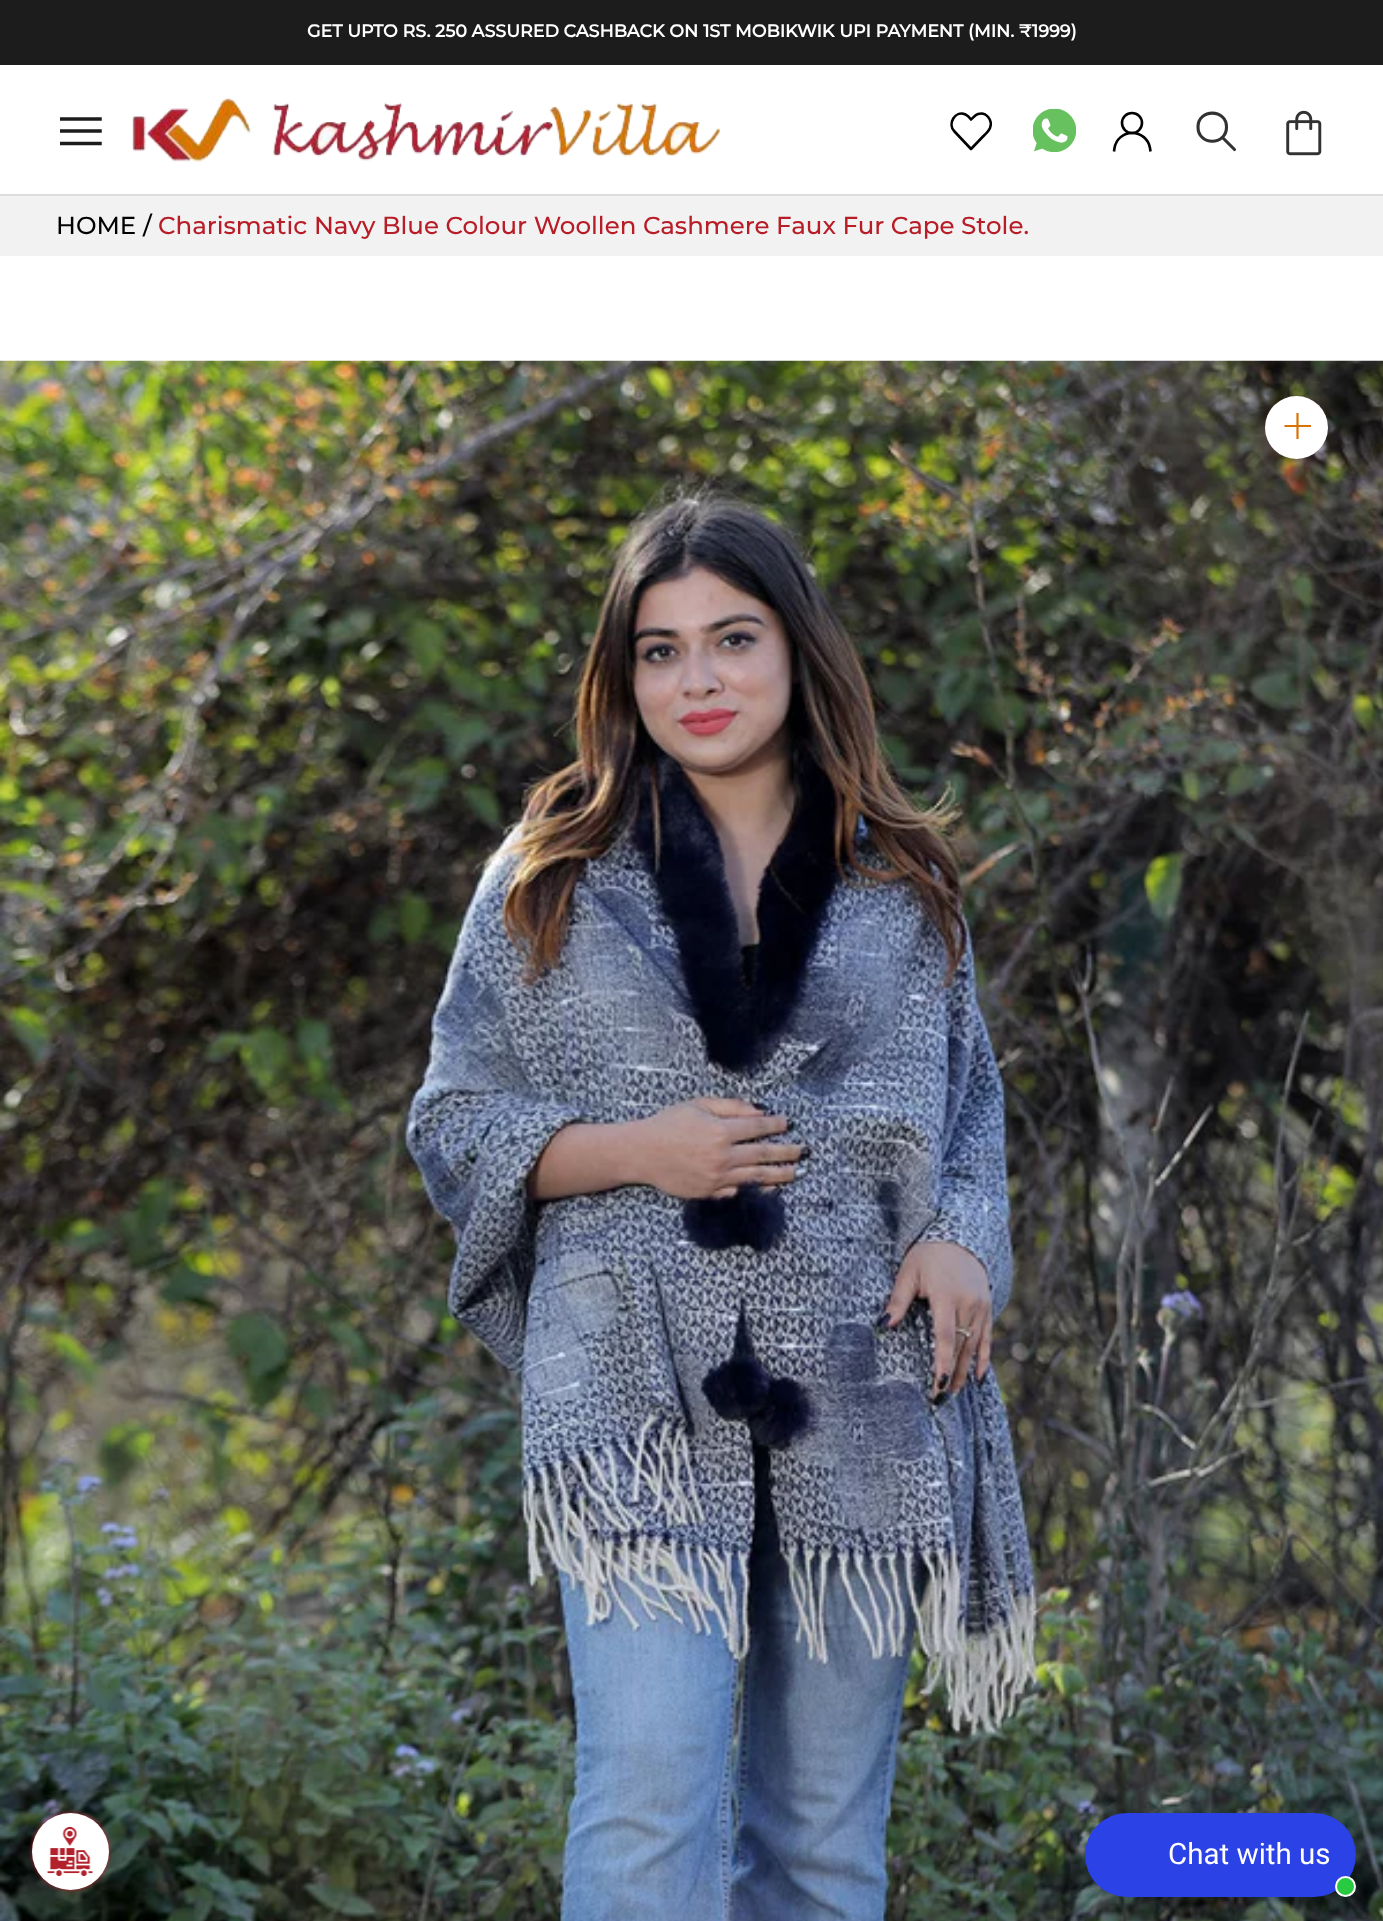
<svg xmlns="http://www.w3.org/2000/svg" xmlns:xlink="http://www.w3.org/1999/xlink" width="1383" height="1921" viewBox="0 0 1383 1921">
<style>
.cls-1{font:bold 17.5px Montserrat;fill:#ffffff}
.cls-2{font:500 24.5px Montserrat;fill:#000000}
.cls-3{font:500 24.5px Montserrat;fill:#b71c27}
.cls-4{font:29.5px Roboto;fill:#ffffff}
</style>
<defs>
<clipPath id="clip1"><rect x="60" y="110" width="42" height="42"/></clipPath>
</defs>
<rect width="100%" height="100%" fill="#ffffff"/>
<rect fill="#1c1c1c" x="0" y="0" width="1383" height="65"/>
<rect fill="#dddddd" x="0" y="194" width="1383" height="2"/>
<g clip-path="url(#clip1)">
<path fill="none" stroke="#1c1c1c" stroke-width="3.5" stroke-linecap="square" d="M61 143.5H100M61 131H100M61 119H100"/>
</g>
<image xlink:href="image0.png" x="132" y="98" width="588" height="64"/>
<path fill="none" stroke="#000000" stroke-width="2.6" stroke-linecap="round" stroke-linejoin="round" d="M954.5 131.5L971 149L982.5 137C985 134.5 988.5 131.5 990 128C993 120.5 986.5 111.5 978 114C975 115 973.5 117.5 971 119.5C969.5 117.5 968 115.5 965.5 114.5C955 110 947 124 954.5 131.5Z"/>
<image xlink:href="image1.png" x="1033" y="109" width="43" height="43"/>
<circle fill="none" stroke="#020202" stroke-width="2.6" cx="1132" cy="123" r="10"/>
<path fill="none" stroke="#020202" stroke-width="2.6" d="M1114 151.5L1114.5 148C1116 139 1123.5 133 1132 133C1141 133 1148.5 139 1150 148L1150.5 151.5"/>
<path fill="none" stroke="#323232" stroke-width="3.1" stroke-linecap="round" stroke-linejoin="round" d="M1222.5 137.5L1234.5 149.5"/>
<path fill="none" stroke="#323232" stroke-width="3.1" d="M1226.5 127C1226.5 146 1198 146 1198 127C1198 108.5 1226.5 108.5 1226.5 127Z"/>
<image xlink:href="image2.png" x="1286" y="110" width="36" height="46"/>
<rect fill="#f2f2f2" x="0" y="196" width="1383" height="60"/>
<image xlink:href="image3.png" x="0" y="360" width="1383" height="1561"/>
<rect fill="#b0212b" fill-opacity="0.15" filter="blur(9px)" x="1265" y="399" width="63" height="63" rx="31.5"/>
<circle fill="#ffffff" cx="1296.5" cy="427.5" r="31.5"/>
<path fill="none" stroke="#d97304" stroke-width="2.2" d="M1297.5 413V439M1284.5 426H1311"/>
<rect fill="#b1202b" filter="blur(2px)" x="32" y="1813" width="77" height="77" rx="38.5"/>
<circle fill="#ffffff" cx="70.5" cy="1851.5" r="38.5"/>
<image xlink:href="image4.png" x="47" y="1826" width="46" height="51"/>
<rect fill="#000000" fill-opacity="0.25" filter="blur(10.5px)" x="1085" y="1824" width="271" height="84" rx="42"/>
<rect fill="#2b42e7" x="1085" y="1813" width="271" height="84" rx="42"/>
<circle fill="#27ca40" stroke="#ffffff" stroke-width="2" cx="1345.5" cy="1886.5" r="9.5"/>
<text class="cls-1" x="307" y="37">GET UPTO RS. 250 ASSURED CASHBACK ON 1ST MOBIKWIK UPI PAYMENT (MIN. ₹1999)</text>
<text class="cls-2" x="56" y="234">HOME /</text>
<text class="cls-3" x="158" y="234">Charismatic Navy Blue Colour Woollen Cashmere Faux Fur Cape Stole.</text>
<text class="cls-4" x="1168" y="1864">Chat with us</text>
</svg>
